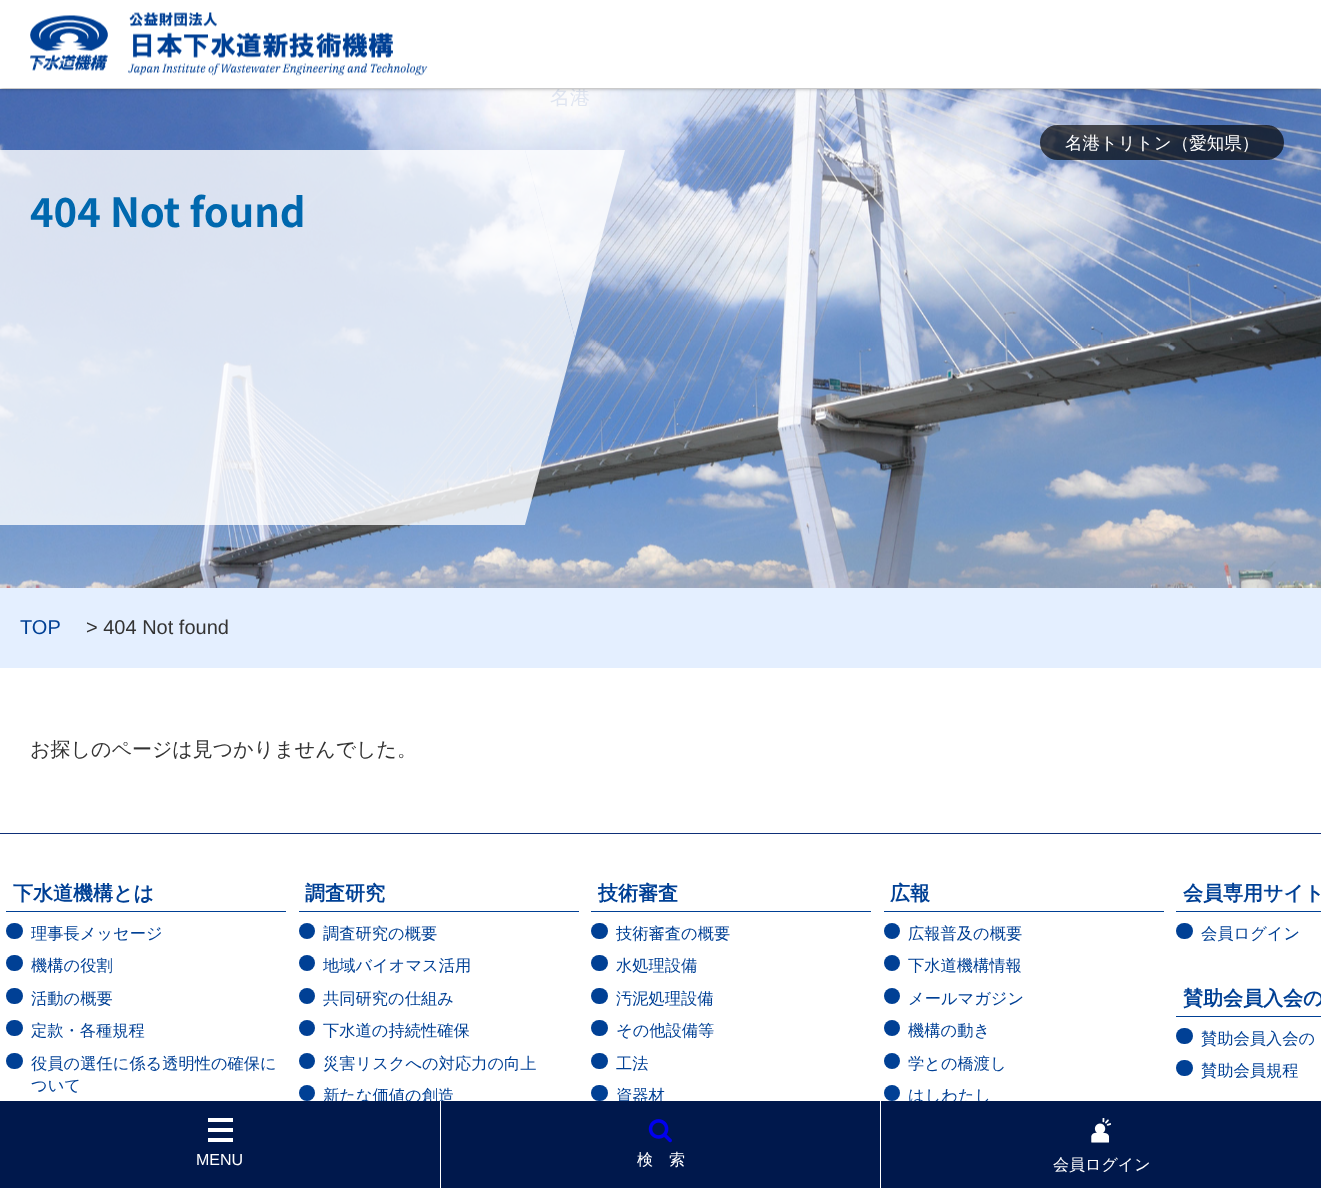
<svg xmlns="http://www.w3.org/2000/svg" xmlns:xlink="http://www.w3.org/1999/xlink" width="1321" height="1188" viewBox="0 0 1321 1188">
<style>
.cls-1{font:500 20px WenQuanYi Zen Hei;fill:#dfe5f1}
.cls-2{font:500 17.5px WenQuanYi Zen Hei;fill:#ffffff}
.cls-3{font:bold 40px Noto Sans JP;fill:#0068ae}
.cls-4{font:20px Liberation Sans;fill:#004095}
.cls-5{font:20px Liberation Sans;fill:#333333}
.cls-6{font:500 20px WenQuanYi Zen Hei;fill:#333333}
.cls-7{font:bold 20px WenQuanYi Zen Hei;fill:#004095}
.cls-8{font:500 16.25px WenQuanYi Zen Hei;fill:#004095}
.cls-9{font:16px Liberation Sans;fill:#ffffff}
.cls-10{font:500 16px WenQuanYi Zen Hei;fill:#ffffff}
</style>
<rect width="100%" height="100%" fill="#ffffff"/>
<image xlink:href="image0.png" x="0" y="89" width="1321" height="499"/>
<rect fill="#000000" fill-opacity="0.67" x="1040" y="125" width="244" height="35" rx="17.5"/>
<rect fill="#ffffff" fill-opacity="0.8" x="0" y="150" width="525" height="375"/>
<path fill="#ffffff" fill-opacity="0.8" d="M525 150H625L575 338Z"/>
<path fill="#ffffff" fill-opacity="0.8" d="M525 525V150L575 338Z"/>
<rect fill="#e4efff" x="0" y="588" width="1321" height="80"/>
<rect fill="#0e2f78" x="0" y="833" width="1321" height="1"/>
<rect fill="#004095" x="6" y="911" width="280" height="1"/>
<rect fill="#004095" x="6" y="923" width="17" height="16" rx="8"/>
<rect fill="#004095" x="6" y="955" width="17" height="16" rx="8"/>
<rect fill="#004095" x="6" y="988" width="17" height="16" rx="8"/>
<rect fill="#004095" x="6" y="1020" width="17" height="16" rx="8"/>
<rect fill="#004095" x="6" y="1053" width="17" height="16" rx="8"/>
<rect fill="#004095" x="299" y="911" width="280" height="1"/>
<circle fill="#004095" cx="307" cy="931" r="8"/>
<circle fill="#004095" cx="307" cy="963" r="8"/>
<circle fill="#004095" cx="307" cy="996" r="8"/>
<circle fill="#004095" cx="307" cy="1028" r="8"/>
<circle fill="#004095" cx="307" cy="1061" r="8"/>
<circle fill="#004095" cx="307" cy="1093" r="8"/>
<rect fill="#004095" x="591" y="911" width="280" height="1"/>
<rect fill="#004095" x="591" y="923" width="17" height="16" rx="8"/>
<rect fill="#004095" x="591" y="955" width="17" height="16" rx="8"/>
<rect fill="#004095" x="591" y="988" width="17" height="16" rx="8"/>
<rect fill="#004095" x="591" y="1020" width="17" height="16" rx="8"/>
<rect fill="#004095" x="591" y="1053" width="17" height="16" rx="8"/>
<rect fill="#004095" x="591" y="1085" width="17" height="16" rx="8"/>
<rect fill="#004095" x="884" y="911" width="280" height="1"/>
<circle fill="#004095" cx="892" cy="931" r="8"/>
<circle fill="#004095" cx="892" cy="963" r="8"/>
<circle fill="#004095" cx="892" cy="996" r="8"/>
<circle fill="#004095" cx="892" cy="1028" r="8"/>
<circle fill="#004095" cx="892" cy="1061" r="8"/>
<circle fill="#004095" cx="892" cy="1093" r="8"/>
<rect fill="#004095" x="1176" y="911" width="145" height="1"/>
<rect fill="#004095" x="1176" y="923" width="17" height="16" rx="8"/>
<rect fill="#004095" x="1176" y="1016" width="145" height="1"/>
<rect fill="#004095" x="1176" y="1028" width="17" height="16" rx="8"/>
<rect fill="#004095" x="1176" y="1060" width="17" height="16" rx="8"/>
<text class="cls-1" x="550" y="104">名港</text>
<text class="cls-2" x="1065" y="149">名港トリトン（愛知県）</text>
<text class="cls-3" x="30" y="227">404 Not found</text>
<text class="cls-4" x="20" y="634">TOP</text>
<text class="cls-5" x="86" y="634">&gt; 404 Not found</text>
<text class="cls-6" x="30" y="756">お探しのページは見つかりませんでした。</text>
<text class="cls-7" x="13" y="900">下水道機構とは</text>
<text class="cls-8"><tspan x="31" y="939">理事長メッセージ</tspan><tspan x="31" y="971">機構の役割</tspan></text>
<text class="cls-8"><tspan x="31" y="1004">活動の概要</tspan><tspan x="31" y="1036">定款・各種規程</tspan></text>
<text class="cls-8"><tspan x="31" y="1069">役員の選任に係る透明性の確保に</tspan><tspan x="31" y="1091">ついて</tspan></text>
<text class="cls-7" x="305" y="900">調査研究</text>
<text class="cls-8"><tspan x="323" y="939">調査研究の概要</tspan><tspan x="323" y="971">地域バイオマス活用</tspan></text>
<text class="cls-8"><tspan x="323" y="1004">共同研究の仕組み</tspan><tspan x="323" y="1036">下水道の持続性確保</tspan></text>
<text class="cls-8"><tspan x="323" y="1069">災害リスクへの対応力の向上</tspan><tspan x="323" y="1101">新たな価値の創造</tspan></text>
<text class="cls-7" x="598" y="900">技術審査</text>
<text class="cls-8"><tspan x="616" y="939">技術審査の概要</tspan><tspan x="616" y="971">水処理設備</tspan></text>
<text class="cls-8"><tspan x="616" y="1004">汚泥処理設備</tspan><tspan x="616" y="1036">その他設備等</tspan></text>
<text class="cls-8"><tspan x="616" y="1069">工法</tspan><tspan x="616" y="1101">資器材</tspan></text>
<text class="cls-7" x="890" y="900">広報</text>
<text class="cls-8"><tspan x="908" y="939">広報普及の概要</tspan><tspan x="908" y="971">下水道機構情報</tspan></text>
<text class="cls-8"><tspan x="908" y="1004">メールマガジン</tspan><tspan x="908" y="1036">機構の動き</tspan></text>
<text class="cls-8"><tspan x="908" y="1069">学との橋渡し</tspan><tspan x="908" y="1101">はしわたし</tspan></text>
<text class="cls-7" x="1183" y="900">会員専用サイト</text>
<text class="cls-8" x="1201" y="939">会員ログイン</text>
<text class="cls-7" x="1183" y="1005">賛助会員入会の</text>
<text class="cls-8"><tspan x="1201" y="1044">賛助会員入会の</tspan><tspan x="1201" y="1076">賛助会員規程</tspan></text>
<rect fill="#ffffff" x="557" y="88" width="28" height="1"/>
<rect fill="#000000" fill-opacity="0.5" filter="blur(2px)" x="0" y="0" width="1321" height="88"/>
<rect fill="#ffffff" x="0" y="0" width="1321" height="88"/>
<image xlink:href="image1.png" x="30" y="12" width="398" height="64"/>
<rect fill="#00184c" x="0" y="1101" width="1321" height="87"/>
<rect fill="#ffffff" x="208" y="1118" width="25" height="4"/>
<rect fill="#ffffff" x="208" y="1128" width="25" height="4"/>
<rect fill="#ffffff" x="208" y="1138" width="25" height="4"/>
<text class="cls-9" x="196" y="1165">MENU</text>
<rect fill="#ffffff" x="440" y="1101" width="1" height="87"/>
<image xlink:href="image2.png" x="648" y="1119" width="24" height="24"/>
<text class="cls-10" x="637" y="1165">検　索</text>
<rect fill="#ffffff" x="880" y="1101" width="1" height="87"/>
<image xlink:href="image3.png" x="1091" y="1118" width="20" height="25"/>
<text class="cls-10" x="1053" y="1170">会員ログイン</text>
</svg>
